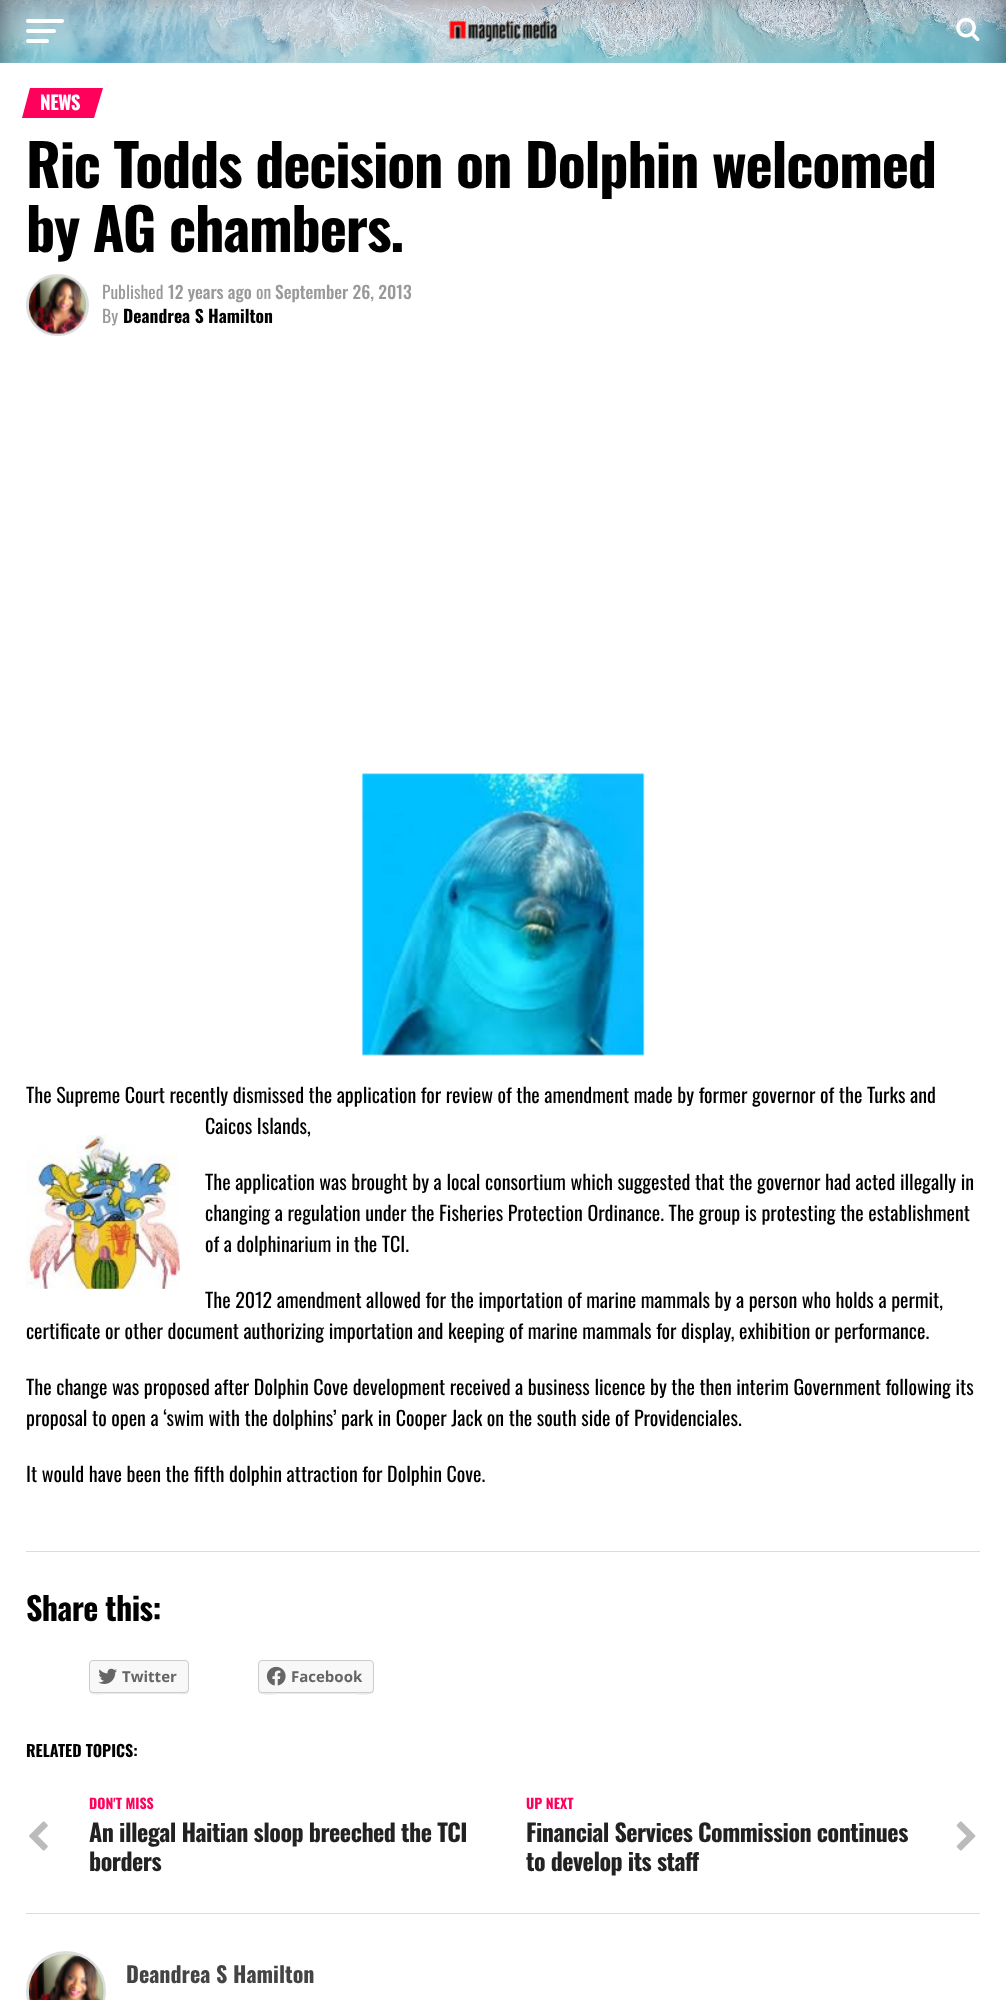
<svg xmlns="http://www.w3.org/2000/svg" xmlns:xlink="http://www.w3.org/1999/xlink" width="1006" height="2000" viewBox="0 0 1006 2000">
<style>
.cls-1{font:bold 19px Oswald;letter-spacing:-0.5px;fill:#ffffff}
.cls-2{font:bold 58px Oswald;letter-spacing:-1.15px;fill:#000000}
.cls-3{font:17.5px Oswald;fill:#999999}
.cls-4{font:500 17.5px Oswald;fill:#999999}
.cls-5{font:bold 17.5px Oswald;fill:#000000}
.cls-6{font:20px Oswald;fill:#000000}
.cls-7{font:bold 32px Oswald;letter-spacing:-0.6px;fill:#000000}
.cls-8{font:bold 15px Open Sans;fill:#656565}
.cls-9{font:bold 16px Oswald;fill:#000000}
.cls-10{font:bold 14px Oswald;fill:#ff005b}
.cls-11{font:bold 24px Oswald;letter-spacing:-0.5px;fill:#222222}
.cls-12{font:bold 22px Oswald;fill:#444444}
</style>
<rect width="100%" height="100%" fill="#ffffff"/>
<image xlink:href="image0.png" x="0" y="0" width="1006" height="63"/>
<rect fill="#ffffff" x="26" y="19" width="38" height="4" rx="2"/>
<rect fill="#ffffff" x="26" y="29" width="30" height="4" rx="2"/>
<rect fill="#ffffff" x="26" y="39" width="23" height="4" rx="2"/>
<image xlink:href="image1.png" x="449" y="20" width="108" height="23"/>
<image xlink:href="image2.png" x="956" y="17" width="24" height="24"/>
<path fill="#ff005b" d="M30 88H103L94 118H22Z"/>
<rect fill="none" stroke="#dddddd" stroke-width="3" x="27.5" y="275.5" width="60" height="59" rx="29.5"/>
<image xlink:href="image3.png" x="28" y="276" width="58" height="59"/>
<image xlink:href="image4.png" x="362" y="773" width="283" height="283"/>
<image xlink:href="image5.png" x="26" y="1135" width="154" height="154"/>
<rect fill="#dcdcde" x="26" y="1551" width="954" height="1"/>
<path fill="#ebebeb" d="M89 1690C89 1697 101 1694 108 1694H170C189 1694 189 1698 189 1682V1664V1685C189 1687 189 1692 185 1692H108C104 1692 91 1695 89 1690Z"/>
<rect fill="#f8f8f8" stroke="#cccccc" x="89.5" y="1660.5" width="99" height="32" rx="3.5"/>
<image xlink:href="image6.png" x="98" y="1668" width="19" height="16"/>
<path fill="#ebebeb" d="M258 1691C259 1697 275 1694 280 1694H352C357 1694 373 1697 374 1691V1664V1685C374 1687 374 1692 370 1692H261C260 1692 259 1692 258 1691Z"/>
<rect fill="#f8f8f8" stroke="#cccccc" x="258.5" y="1660.5" width="115" height="32" rx="3.5"/>
<image xlink:href="image7.png" x="266" y="1666" width="20" height="20"/>
<rect fill="#dddddd" x="26" y="1913" width="954" height="1"/>
<image xlink:href="image8.png" x="29" y="1821" width="19" height="30"/>
<image xlink:href="image9.png" x="956" y="1821" width="20" height="30"/>
<circle fill="none" stroke="#dddddd" stroke-width="3" cx="66" cy="1991" r="38.5"/>
<image xlink:href="image10.png" x="28" y="1954" width="76" height="46"/>
<text class="cls-1" x="40" y="110">NEWS</text>
<text class="cls-2"><tspan x="26" y="188">Ric Todds decision on Dolphin welcomed</tspan><tspan x="26" y="252">by AG chambers.</tspan></text>
<text class="cls-3" x="102" y="299">Published</text>
<text class="cls-4" x="168" y="299">12 years ago</text>
<text class="cls-3" x="256" y="299">on</text>
<text class="cls-4" x="275" y="299">September 26, 2013</text>
<text class="cls-3" x="102" y="323">By</text>
<text class="cls-5" x="123" y="323">Deandrea S Hamilton</text>
<text class="cls-6" x="26" y="1103">The Supreme Court recently dismissed the application for review of the amendment made by former governor of the Turks and</text>
<text class="cls-6" x="205" y="1134">Caicos Islands,</text>
<text class="cls-6"><tspan x="205" y="1190">The application was brought by a local consortium which suggested that the governor had acted illegally in</tspan><tspan x="205" y="1221">changing a regulation under the Fisheries Protection Ordinance. The group is protesting the establishment</tspan><tspan x="205" y="1252">of a dolphinarium in the TCI.</tspan></text>
<text class="cls-6" x="205" y="1308">The 2012 amendment allowed for the importation of marine mammals by a person who holds a permit,</text>
<text class="cls-6" x="26" y="1339">certificate or other document authorizing importation and keeping of marine mammals for display, exhibition or performance.</text>
<text class="cls-6"><tspan x="26" y="1395">The change was proposed after Dolphin Cove development received a business licence by the then interim Government following its</tspan><tspan x="26" y="1426">proposal to open a ‘swim with the dolphins’ park in Cooper Jack on the south side of Providenciales.</tspan></text>
<text class="cls-6" x="26" y="1482">It would have been the fifth dolphin attraction for Dolphin Cove.</text>
<text class="cls-7" x="26" y="1621">Share this:</text>
<text class="cls-8" x="122" y="1682">Twitter</text>
<text class="cls-8" x="291" y="1682">Facebook</text>
<text class="cls-9" x="26" y="1757">RELATED TOPICS:</text>
<text class="cls-10" x="89" y="1809">DON'T MISS</text>
<text class="cls-11"><tspan x="89" y="1842">An illegal Haitian sloop breeched the TCI</tspan><tspan x="89" y="1871">borders</tspan></text>
<text class="cls-10" x="526" y="1809">UP NEXT</text>
<text class="cls-11"><tspan x="526" y="1842">Financial Services Commission continues</tspan><tspan x="526" y="1871">to develop its staff</tspan></text>
<text class="cls-12" x="126" y="1983">Deandrea S Hamilton</text>
</svg>
